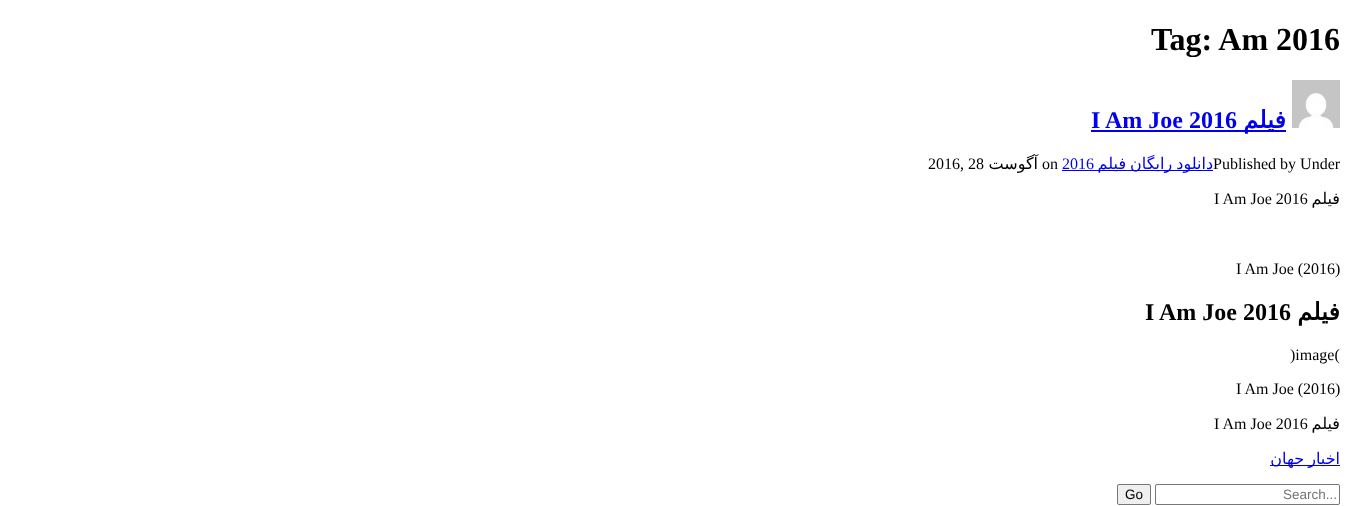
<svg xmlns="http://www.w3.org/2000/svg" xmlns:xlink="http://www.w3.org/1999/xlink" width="1348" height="506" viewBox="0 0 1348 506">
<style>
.cls-1{font:bold 32px Liberation Serif;fill:#000000}
.cls-2{font:bold 24px Liberation Serif;fill:#0000ee}
.cls-3{font:bold 24px DejaVu Sans;direction:rtl;fill:#0000ee}
.cls-4{font:16px Liberation Serif;fill:#000000}
.cls-5{font:16px DejaVu Sans;direction:rtl;fill:#000000}
.cls-6{font:16px Liberation Serif;fill:#0000ee}
.cls-7{font:16px DejaVu Sans;direction:rtl;fill:#0000ee}
.cls-8{font:bold 24px Liberation Serif;fill:#000000}
.cls-9{font:bold 24px DejaVu Sans;direction:rtl;fill:#000000}
.cls-10{font:13.5px Liberation Sans;fill:#000000}
.cls-11{font:13.5px Liberation Sans;fill:#757575}
</style>
<rect width="100%" height="100%" fill="#ffffff"/>
<rect fill="#0000ee" x="1091" y="130" width="195" height="2"/>
<image xlink:href="image0.png" x="1292" y="80" width="48" height="48"/>
<rect fill="#0000ee" x="1062" y="170" width="151" height="1"/>
<rect fill="#0000ee" x="1270" y="465" width="70" height="1"/>
<rect fill="#efefef" stroke="#767676" x="1117.5" y="484.5" width="33" height="20" rx="1.5"/>
<rect fill="none" stroke="#767676" x="1155.5" y="484.5" width="184" height="20" rx="1.5"/>
<text class="cls-1" x="1151" y="50">Tag: Am 2016</text>
<text class="cls-2" x="1091" y="128">I Am Joe 2016</text>
<text class="cls-3" x="1286" y="128">فیلم</text>
<text class="cls-4" x="928" y="169">2016, 28</text>
<text class="cls-5" x="1038" y="169">آگوست</text>
<text class="cls-4" x="1042" y="169">on</text>
<text class="cls-6" x="1062" y="169">2016</text>
<text class="cls-4" x="1213" y="169">Published by Under</text>
<text class="cls-7" x="1213" y="169" word-spacing="-1">دانلود رایگان فیلم</text>
<text class="cls-4" x="1214" y="204">I Am Joe 2016</text>
<text class="cls-5" x="1340" y="204">فیلم</text>
<text class="cls-4" x="1236" y="274">I Am Joe (2016)</text>
<text class="cls-8" x="1145" y="320">I Am Joe 2016</text>
<text class="cls-9" x="1340" y="320">فیلم</text>
<text class="cls-4" x="1290" y="360">)image(</text>
<text class="cls-4" x="1236" y="394">I Am Joe (2016)</text>
<text class="cls-4" x="1214" y="429">I Am Joe 2016</text>
<text class="cls-5" x="1340" y="429">فیلم</text>
<text class="cls-7" x="1340" y="464" word-spacing="-1">اخبار جهان</text>
<text class="cls-10" x="1125" y="499">Go</text>
<text class="cls-11" x="1283" y="499">Search...</text>
</svg>
